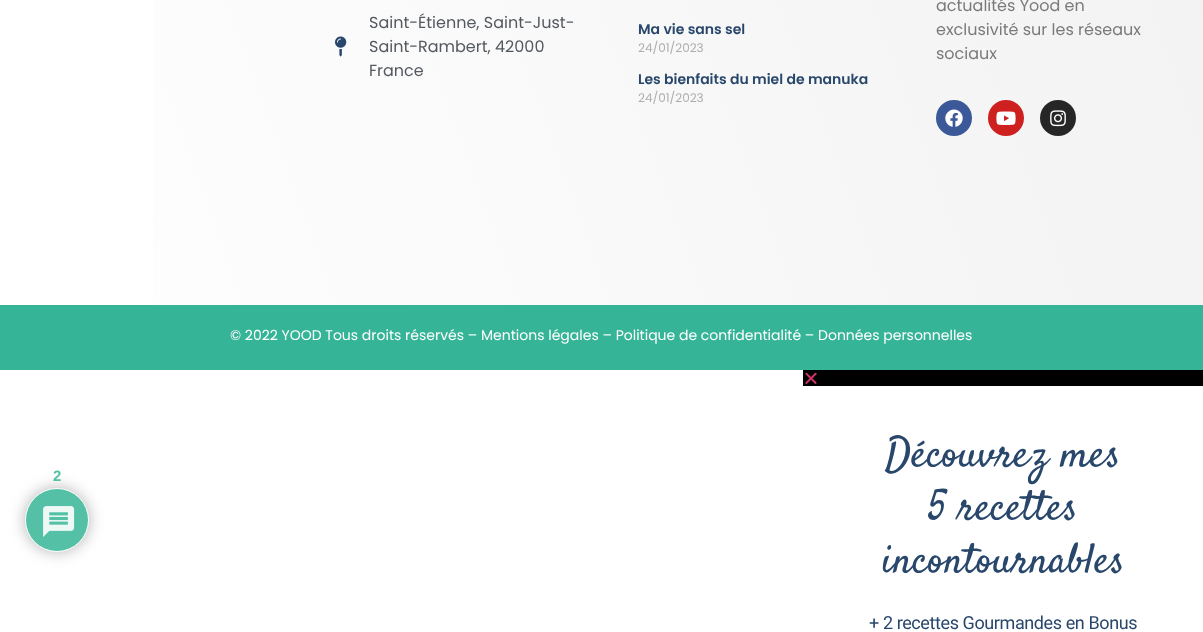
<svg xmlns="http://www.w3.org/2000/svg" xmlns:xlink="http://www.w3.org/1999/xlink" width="1203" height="632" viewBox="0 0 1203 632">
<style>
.cls-1{font:16px Poppins;fill:#54595f}
.cls-2{font:600 14px Poppins;fill:#28476b}
.cls-3{font:12px Poppins;fill:#adadad}
.cls-4{font:16px Poppins;fill:#7a7a7a}
.cls-5{font:14px Poppins;fill:#ffffff}
.cls-6{font:bold 15px Liberation Sans;fill:#54c1a7}
.cls-7{font:42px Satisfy;fill:#28476b}
.cls-8{font:18px Roboto;letter-spacing:-0.4px;fill:#28476b}
</style>
<defs>
<linearGradient id="g1" gradientUnits="userSpaceOnUse" x1="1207" y1="-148" x2="-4.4" y2="293"><stop offset="0" stop-color="#f2f2f2"/><stop offset="1" stop-color="#ffffff"/></linearGradient>
</defs>
<rect width="100%" height="100%" fill="#ffffff"/>
<rect fill="url(#g1)" x="153" y="0" width="1050" height="305"/>
<image xlink:href="image0.png" x="335" y="36" width="12" height="21"/>
<circle fill="#3b5998" cx="954" cy="118" r="18"/>
<image xlink:href="image1.png" x="945" y="109" width="18" height="18"/>
<circle fill="#cd201f" cx="1006" cy="118" r="18"/>
<image xlink:href="image2.png" x="996" y="111" width="20" height="14"/>
<circle fill="#262626" cx="1058" cy="118" r="18"/>
<image xlink:href="image3.png" x="1050" y="110" width="16" height="17"/>
<rect fill="#36b497" x="0" y="305" width="1203" height="65"/>
<rect fill="#b3b3b3" filter="blur(7.5px)" x="25" y="488" width="64" height="64" rx="32"/>
<circle fill="#54c1a7" stroke="#ffffff" cx="57" cy="520" r="31.5"/>
<image xlink:href="image4.png" x="43" y="506" width="32" height="31"/>
<rect fill="#000000" x="803" y="370" width="400" height="16"/>
<image xlink:href="image5.png" x="805" y="372" width="12" height="12"/>
<text class="cls-1"><tspan x="369" y="28">Saint-Étienne, Saint-Just-</tspan><tspan x="369" y="52">Saint-Rambert, 42000</tspan><tspan x="369" y="76">France</tspan></text>
<text class="cls-2" x="638" y="34">Ma vie sans sel</text>
<text class="cls-3" x="638" y="52">24/01/2023</text>
<text class="cls-2" x="638" y="84">Les bienfaits du miel de manuka</text>
<text class="cls-3" x="638" y="102">24/01/2023</text>
<text class="cls-4"><tspan x="936" y="11">actualités Yood en</tspan><tspan x="936" y="35">exclusivité sur les réseaux</tspan><tspan x="936" y="59">sociaux</tspan></text>
<text class="cls-5" x="230" y="340">© 2022 YOOD Tous droits réservés – Mentions légales – Politique de confidentialité – Données personnelles</text>
<text class="cls-6" x="53" y="481">2</text>
<text class="cls-7" x="885" y="466">Découvrez mes</text>
<text class="cls-7" x="928" y="519">5 recettes</text>
<text class="cls-7" x="882" y="572">incontournables</text>
<text class="cls-8" x="869" y="629">+ 2 recettes Gourmandes en Bonus</text>
</svg>
